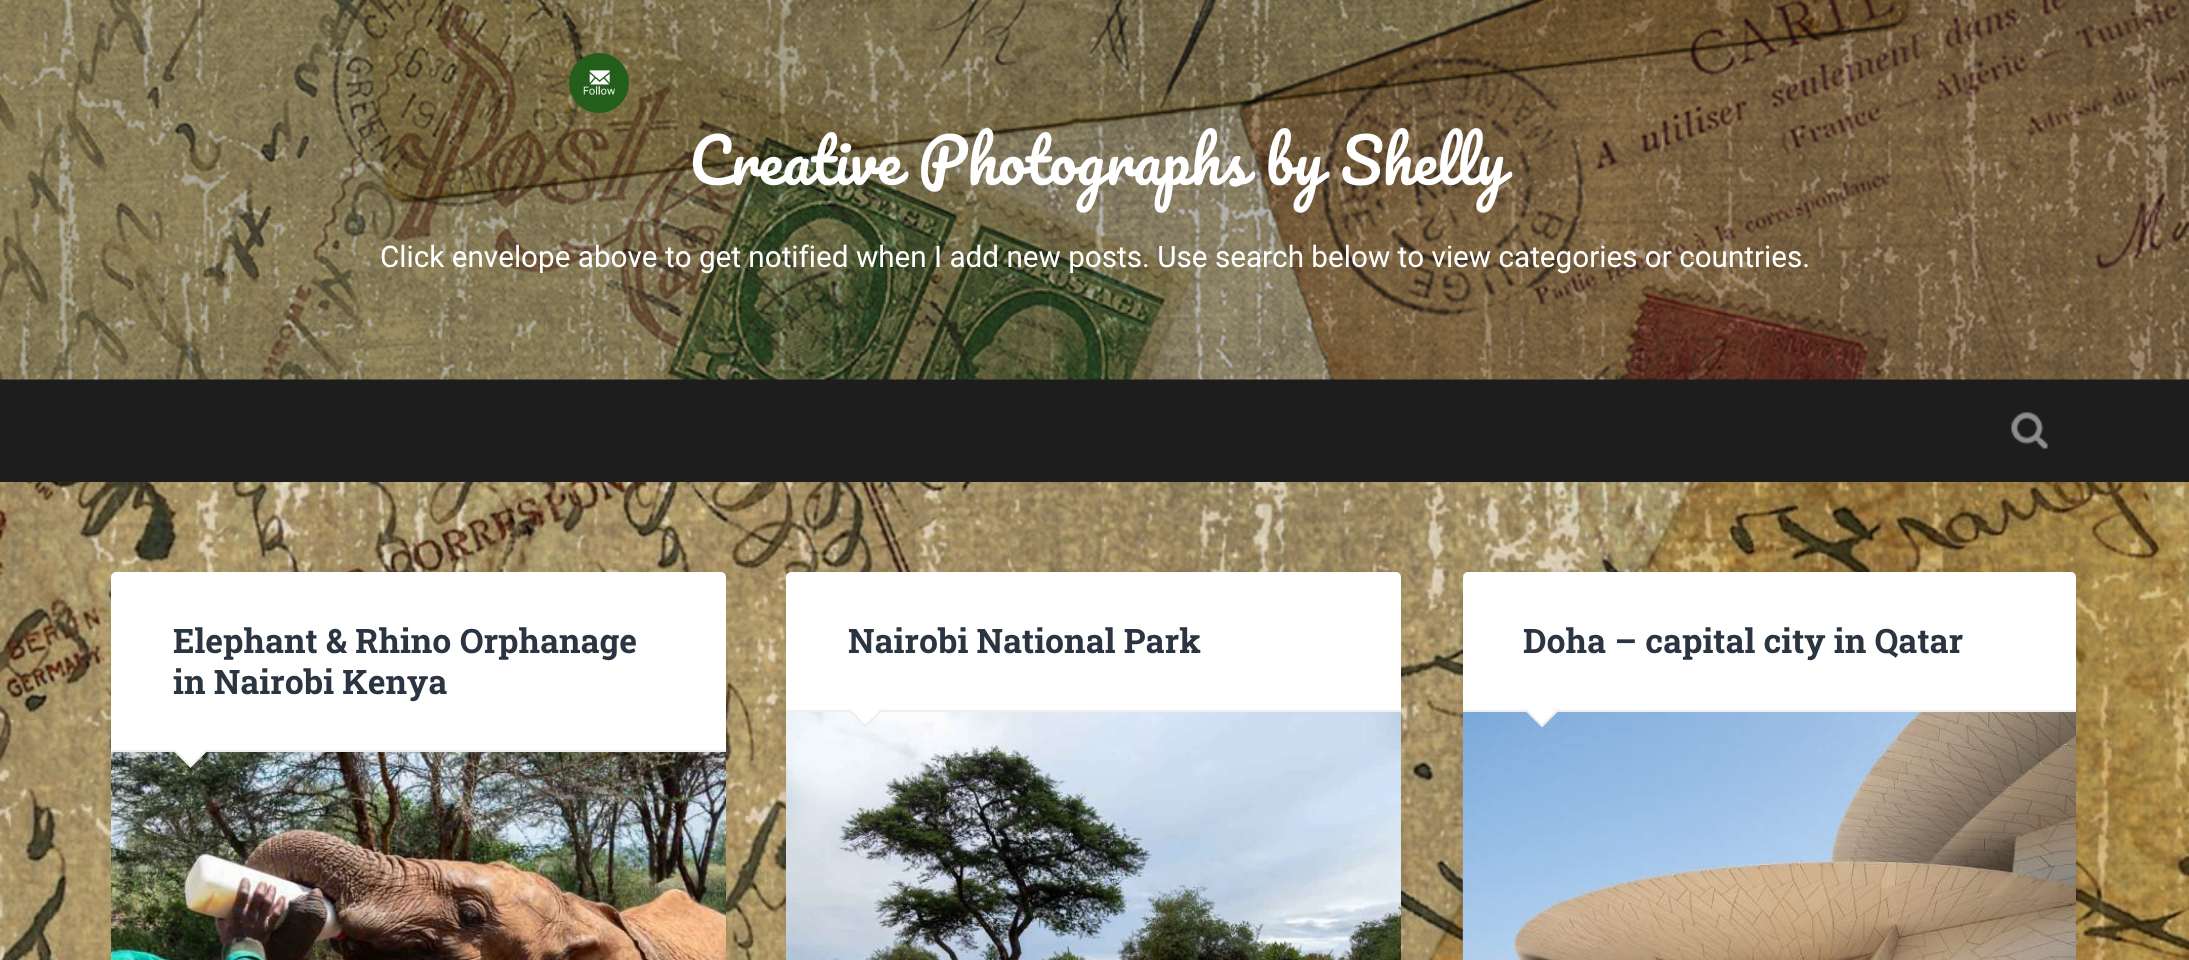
<svg xmlns="http://www.w3.org/2000/svg" xmlns:xlink="http://www.w3.org/1999/xlink" width="2189" height="960" viewBox="0 0 2189 960">
<style>*{font-kerning:none!important;font-variant-ligatures:none!important}</style>
<style>
.cls-1{font:60.75px Pacifico;fill:#ffffff}
.cls-2{font:29.7px Roboto;fill:#ffffff}
.cls-3{font:bold 33.75px Roboto Slab;fill:#2b3542}
</style>
<rect width="100%" height="100%" fill="#ffffff"/>
<image xlink:href="image0.png" x="0" y="482" width="2189" height="478"/>
<rect fill="#1d1d1d" x="0" y="379" width="2189" height="103"/>
<image xlink:href="image2.png" x="0" y="0" width="2189" height="380"/>
<rect fill="#1d1d1d" fill-opacity="0.25" x="0" y="0" width="2189" height="380"/>
<circle fill="#235e1a" cx="599" cy="83" r="30"/>
<image xlink:href="image1.png" x="583" y="70" width="32" height="25"/>
<image xlink:href="image3.png" x="2011" y="412" width="37" height="37"/>
<rect fill="#000000" fill-opacity="0.1" filter="blur(3px)" x="111" y="573" width="615" height="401" rx="5"/>
<rect fill="#ffffff" x="111" y="572" width="615" height="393" rx="5"/>
<rect fill="#eeeeee" x="111" y="750" width="615" height="2"/>
<image xlink:href="image4.png" x="111" y="752" width="615" height="208"/>
<path fill="#eeeeee" d="M172.5 750H208.5L190.5 768Z"/>
<path fill="#ffffff" d="M174 748.5H207L190.5 765Z"/>
<rect fill="#000000" fill-opacity="0.1" filter="blur(3px)" x="786" y="573" width="615" height="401" rx="5"/>
<rect fill="#ffffff" x="786" y="572" width="615" height="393" rx="5"/>
<rect fill="#eeeeee" x="786" y="710" width="615" height="2"/>
<image xlink:href="image5.png" x="786" y="712" width="615" height="248"/>
<path fill="#eeeeee" d="M847.5 709.5H883.5L865.5 727.5Z"/>
<path fill="#ffffff" d="M849 708H882L865.5 724.5Z"/>
<rect fill="#000000" fill-opacity="0.1" filter="blur(3px)" x="1463" y="573" width="613" height="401" rx="5"/>
<rect fill="#ffffff" x="1463" y="572" width="613" height="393" rx="5"/>
<image xlink:href="image6.png" x="1462" y="711" width="614" height="249"/>
<rect fill="#eeeeee" x="1463" y="710" width="613" height="2"/>
<path fill="#eeeeee" d="M1524 709.5H1560L1542 727.5Z"/>
<path fill="#ffffff" d="M1525.5 708H1558.5L1542 724.5Z"/>
<text class="cls-1" x="689" y="185" word-spacing="1.5">Creative Photographs by Shelly</text>
<text class="cls-2" x="380" y="267">Click envelope above to get notified when I add new posts. Use search below to view categories or countries.</text>
<text class="cls-3"><tspan x="173" y="653">Elephant &amp; Rhino Orphanage</tspan><tspan x="173" y="694">in Nairobi Kenya</tspan></text>
<text class="cls-3" x="848" y="653">Nairobi National Park</text>
<text class="cls-3" x="1523" y="653">Doha – capital city in Qatar</text>
</svg>
